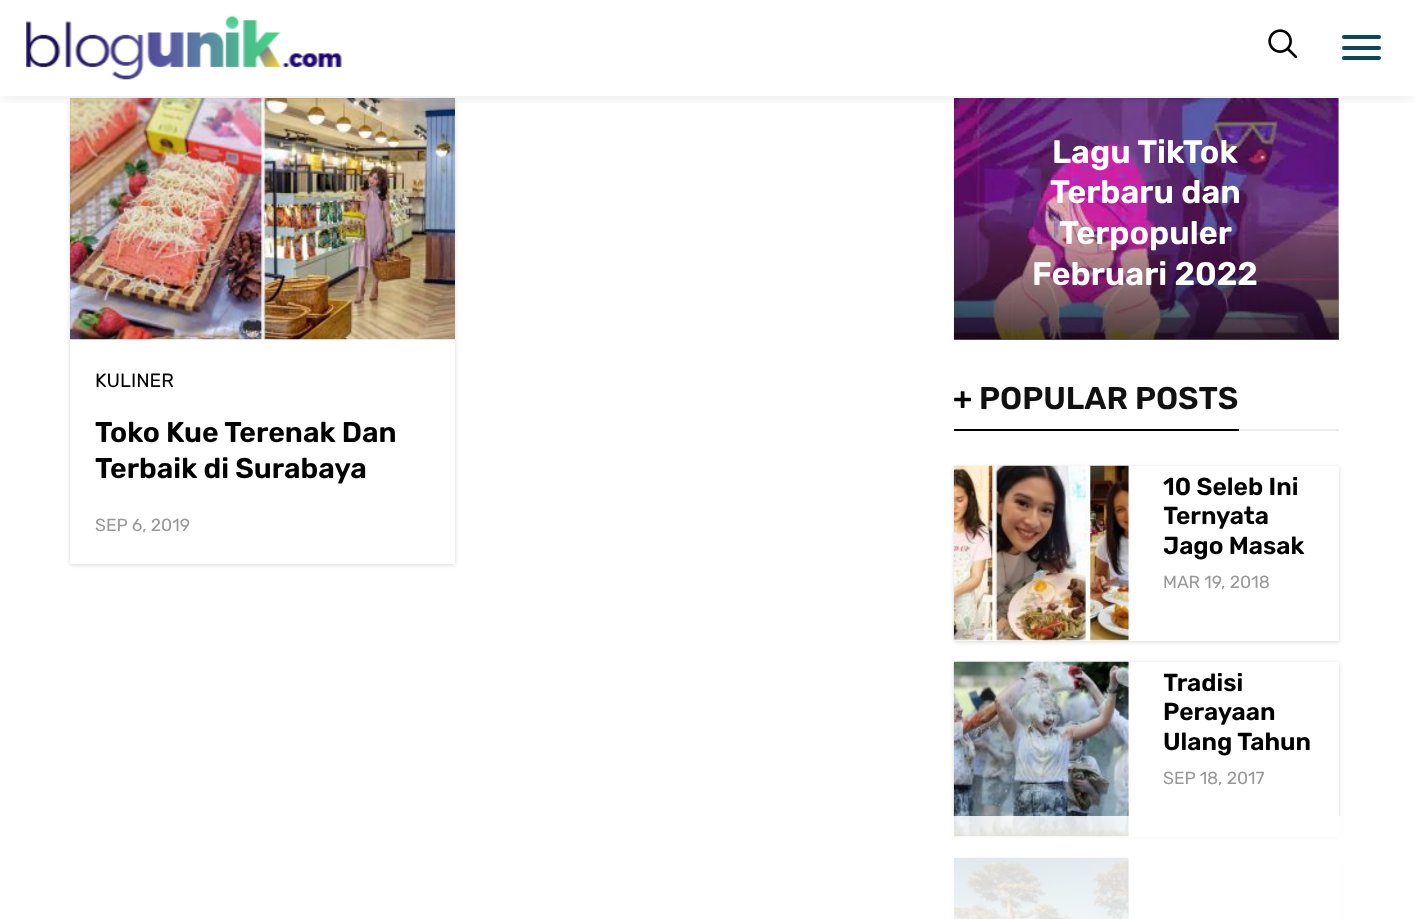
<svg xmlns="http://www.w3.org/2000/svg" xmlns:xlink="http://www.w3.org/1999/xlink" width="1415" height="919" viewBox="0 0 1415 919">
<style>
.cls-1{font:19.25px Rubik;fill:#000000}
.cls-2{font:600 28.5px Rubik;fill:#000000}
.cls-3{font:17.5px Rubik;fill:#999999}
.cls-4{font:600 32.5px Rubik;fill:#ffffff}
.cls-5{font:600 31.5px Rubik;fill:#000000}
.cls-6{font:600 31.5px Rubik;fill:#111111}
.cls-7{font:600 24.5px Rubik;fill:#000000}
</style>
<defs>
<clipPath id="clip1"><rect x="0" y="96" width="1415" height="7"/></clipPath>
<linearGradient id="g1" gradientUnits="userSpaceOnUse" x1="1146" y1="219" x2="1146" y2="340"><stop offset="0" stop-color="#000000" stop-opacity="0"/><stop offset="1" stop-color="#000000" stop-opacity="0.65"/></linearGradient>
<clipPath id="clip2"><rect x="1164" y="474" width="157" height="88"/></clipPath>
<clipPath id="clip3"><rect x="1164" y="670" width="157" height="88"/></clipPath>
</defs>
<rect width="100%" height="100%" fill="#ffffff"/>
<rect fill="#000000" fill-opacity="0.15" filter="blur(2px)" x="70" y="100" width="385" height="465"/>
<rect fill="#ffffff" x="70" y="339" width="385" height="225"/>
<image xlink:href="image2.png" x="70" y="98" width="385" height="242"/>
<image xlink:href="image3.png" x="953" y="98" width="386" height="242"/>
<g clip-path="url(#clip1)">
<rect fill="#000000" fill-opacity="0.1" filter="blur(8px)" x="0" y="0" width="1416" height="96"/>
</g>
<image xlink:href="image0.png" x="26" y="16" width="316" height="64"/>
<image xlink:href="image1.png" x="1268" y="29" width="30" height="30"/>
<rect fill="#0a4759" x="1342" y="35" width="39" height="4" rx="2"/>
<rect fill="#0a4759" x="1342" y="46" width="39" height="4" rx="2"/>
<rect fill="#0a4759" x="1342" y="56" width="39" height="4" rx="2"/>
<rect fill="url(#g1)" x="954" y="223" width="385" height="117"/>
<rect fill="#000000" x="954" y="429" width="285" height="2"/>
<rect fill="#ececec" x="1239" y="429" width="100" height="2"/>
<rect fill="#000000" fill-opacity="0.15" filter="blur(2px)" x="954" y="467" width="385" height="175"/>
<rect fill="#ffffff" x="954" y="466" width="385" height="175"/>
<image xlink:href="image4.png" x="953" y="465" width="176" height="176"/>
<rect fill="#000000" fill-opacity="0.15" filter="blur(2px)" x="954" y="663" width="385" height="175"/>
<rect fill="#ffffff" x="954" y="662" width="385" height="175"/>
<image xlink:href="image5.png" x="953" y="661" width="176" height="176"/>
<rect fill="#000000" fill-opacity="0.15" filter="blur(2px)" x="954" y="859" width="385" height="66"/>
<rect fill="#ffffff" x="1128" y="858" width="211" height="61"/>
<image xlink:href="image6.png" x="953" y="857" width="176" height="62"/>
<rect fill="#ffffff" fill-opacity="0.85" x="951" y="816" width="391" height="103"/>
<text class="cls-1" x="95" y="387">KULINER</text>
<text class="cls-2"><tspan x="95" y="442">Toko Kue Terenak Dan</tspan><tspan x="95" y="478">Terbaik di Surabaya</tspan></text>
<text class="cls-3" x="95" y="531">SEP 6, 2019</text>
<text class="cls-4" x="1052" y="163">Lagu TikTok</text>
<text class="cls-4" x="1050" y="203">Terbaru dan</text>
<text class="cls-4" x="1059" y="244">Terpopuler</text>
<text class="cls-4" x="1032" y="285">Februari 2022</text>
<text class="cls-5" x="953" y="409">+</text>
<text class="cls-6" x="979" y="409">POPULAR POSTS</text>
<text class="cls-7" x="1163" y="495">10 Seleb Ini</text>
<g clip-path="url(#clip2)">
<text class="cls-7"><tspan x="1163" y="524">Ternyata</tspan><tspan x="1163" y="554">Jago Masak</tspan></text>
</g>
<text class="cls-3" x="1163" y="588">MAR 19, 2018</text>
<g clip-path="url(#clip3)">
<text class="cls-7" x="1163" y="691">Tradisi</text>
</g>
<text class="cls-7"><tspan x="1163" y="720">Perayaan</tspan><tspan x="1163" y="750">Ulang Tahun</tspan></text>
<text class="cls-3" x="1163" y="784">SEP 18, 2017</text>
</svg>
